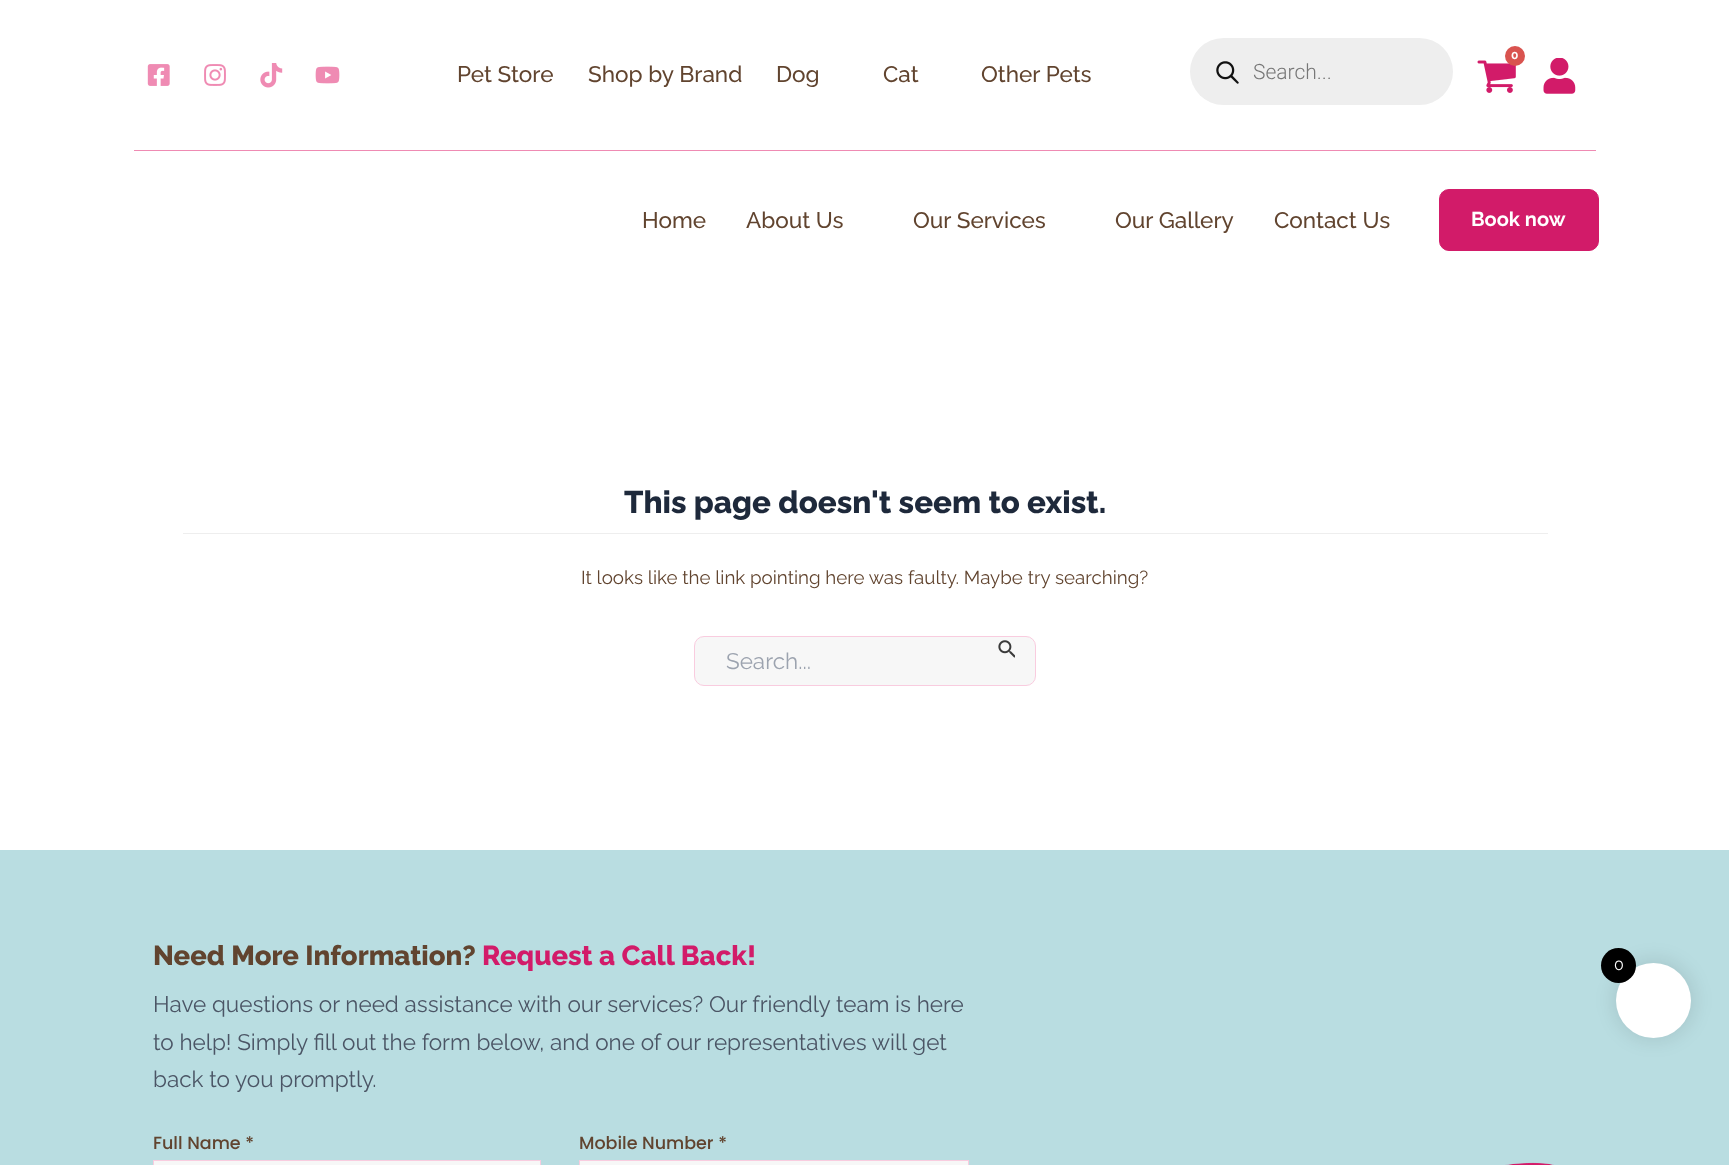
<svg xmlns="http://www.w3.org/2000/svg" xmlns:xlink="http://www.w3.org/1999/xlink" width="1729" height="1165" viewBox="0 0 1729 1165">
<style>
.cls-1{font:bold 12px Raleway;fill:#ffffff}
.cls-2{font:500 22.5px Raleway;fill:#61442f}
.cls-3{font:300 21px Roboto;fill:#777777}
.cls-4{font:bold 20px Raleway;fill:#ffffff}
.cls-5{font:800 31.25px Raleway;fill:#1e293b}
.cls-6{font:18.75px Raleway;fill:#61442f}
.cls-7{font:22.5px Raleway;fill:#9ca3af}
.cls-8{font:800 27.5px Raleway;fill:#61442f}
.cls-9{font:800 27.5px Raleway;fill:#d21b69}
.cls-10{font:22.5px Raleway;fill:#4b5565}
.cls-11{font:500 17.5px Poppins;fill:#61442f}
.cls-12{font:16px Raleway;fill:#ffffff}
</style>
<rect width="100%" height="100%" fill="#ffffff"/>
<image xlink:href="image0.png" x="1477" y="60" width="39" height="33"/>
<circle fill="#d9534f" cx="1515" cy="56" r="10"/>
<image xlink:href="image1.png" x="147" y="64" width="23" height="22"/>
<image xlink:href="image2.png" x="204" y="64" width="22" height="22"/>
<image xlink:href="image3.png" x="260" y="63" width="23" height="25"/>
<image xlink:href="image4.png" x="315" y="66" width="25" height="18"/>
<rect fill="#eeeeee" x="1190" y="38" width="263" height="67" rx="33.5"/>
<image xlink:href="image5.png" x="1216" y="61" width="23" height="23"/>
<image xlink:href="image6.png" x="1543" y="58" width="33" height="36"/>
<rect fill="#ef8bb3" x="134" y="150" width="1462" height="1"/>
<rect fill="#d21b69" stroke="#d21b69" x="1439.5" y="189.5" width="159" height="61" rx="9.5"/>
<rect fill="#eeeeee" x="183" y="533" width="1365" height="1"/>
<rect fill="#f7f7f7" stroke="#f9ccdf" x="694.5" y="636.5" width="341" height="49" rx="9.5"/>
<image xlink:href="image7.png" x="998" y="640" width="17" height="18"/>
<rect fill="#b9dde1" x="0" y="850" width="1729" height="315"/>
<rect fill="#f7f7f7" stroke="#f9ccdf" x="153.5" y="1160.5" width="387" height="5"/>
<rect fill="#f7f7f7" stroke="#f9ccdf" x="579.5" y="1160.5" width="389" height="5"/>
<image xlink:href="image8.png" x="1505" y="1162" width="49" height="3"/>
<rect fill="#000000" fill-opacity="0.1" filter="blur(9.5px)" x="1614" y="960" width="80" height="80" rx="40"/>
<circle fill="#ffffff" cx="1653.5" cy="1000.5" r="37.5"/>
<circle fill="#000000" cx="1618.5" cy="965.5" r="17.5"/>
<text class="cls-1" x="1511" y="59">0</text>
<text class="cls-2" x="457" y="82">Pet Store</text>
<text class="cls-2" x="588" y="82">Shop by Brand</text>
<text class="cls-2" x="776" y="82">Dog</text>
<text class="cls-2" x="883" y="82">Cat</text>
<text class="cls-2" x="981" y="82">Other Pets</text>
<text class="cls-3" x="1253" y="79">Search...</text>
<text class="cls-2" x="642" y="228">Home</text>
<text class="cls-2" x="746" y="228">About Us</text>
<text class="cls-2" x="913" y="228">Our Services</text>
<text class="cls-2" x="1115" y="228">Our Gallery</text>
<text class="cls-2" x="1274" y="228">Contact Us</text>
<text class="cls-4" x="1471" y="226">Book now</text>
<text class="cls-5" x="624" y="513">This page doesn't seem to exist.</text>
<text class="cls-6" x="581" y="584">It looks like the link pointing here was faulty. Maybe try searching?</text>
<text class="cls-7" x="726" y="669">Search...</text>
<text class="cls-8" x="153" y="965">Need More Information?</text>
<text class="cls-9" x="482" y="965">Request a Call Back!</text>
<text class="cls-10"><tspan x="153" y="1012">Have questions or need assistance with our services? Our friendly team is here</tspan><tspan x="153" y="1050">to help! Simply fill out the form below, and one of our representatives will get</tspan><tspan x="153" y="1087">back to you promptly.</tspan></text>
<text class="cls-11" x="153" y="1149">Full Name *</text>
<text class="cls-11" x="579" y="1149">Mobile Number *</text>
<text class="cls-12" x="1614" y="970">0</text>
</svg>
